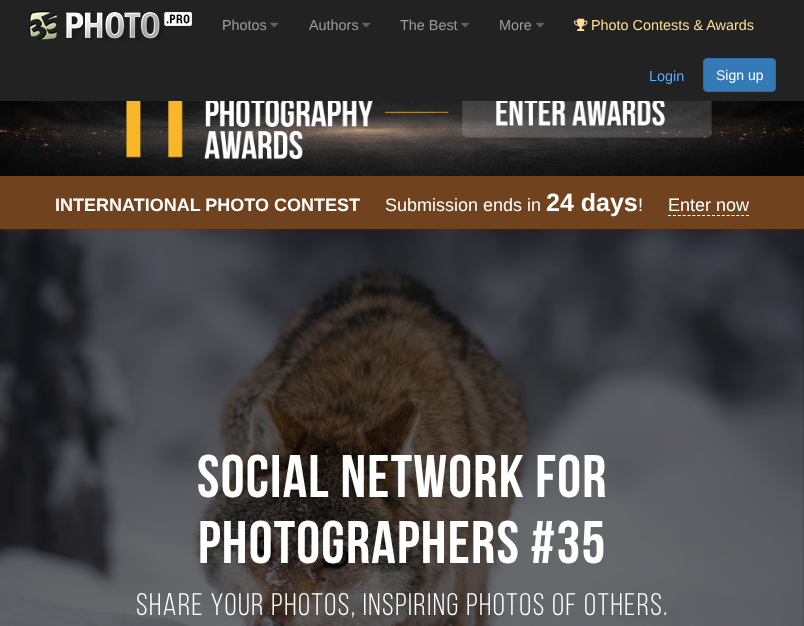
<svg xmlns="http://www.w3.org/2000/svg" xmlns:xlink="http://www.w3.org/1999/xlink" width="804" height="626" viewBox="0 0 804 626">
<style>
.cls-1{font:14.4px Liberation Sans;fill:#9d9d9d}
.cls-2{font:14.4px Liberation Sans;fill:#ffdf94}
.cls-3{font:14.4px Liberation Sans;fill:#58acff}
.cls-4{font:14px Liberation Sans;fill:#ffffff}
.cls-5{font:bold 18px Liberation Sans;fill:#ffffff}
.cls-6{font:18px Liberation Sans;fill:#ffffff}
.cls-7{font:bold 25px Liberation Sans;fill:#ffffff}
.cls-8{font:bold 60px Bebas Neue;letter-spacing:1.25px;fill:#ffffff}
.cls-9{font:31.25px Bebas Neue;letter-spacing:1.55px;fill:#ffffff}
</style>
<rect width="100%" height="100%" fill="#ffffff"/>
<image xlink:href="image0.png" x="0" y="229" width="804" height="397"/>
<rect fill="#222222" x="0" y="0" width="804" height="100"/>
<rect fill="#232323" x="0" y="100" width="804" height="1"/>
<image xlink:href="image1.png" x="29" y="11" width="163" height="30"/>
<image xlink:href="image2.png" x="270" y="22" width="9" height="6"/>
<image xlink:href="image2.png" x="362" y="22" width="9" height="6"/>
<image xlink:href="image2.png" x="461" y="22" width="9" height="6"/>
<image xlink:href="image2.png" x="536" y="22" width="9" height="6"/>
<image xlink:href="image3.png" x="574" y="18" width="14" height="13"/>
<rect fill="#337ab7" stroke="#2e6da4" x="703.5" y="58.5" width="72" height="33" rx="3.5"/>
<image xlink:href="image4.png" x="0" y="101" width="804" height="75"/>
<rect fill="#71421e" x="0" y="176" width="804" height="53"/>
<path fill="none" stroke="#ffffff" stroke-dasharray="3 1.88" d="M668 215.5H749"/>
<image xlink:href="image5.png" x="0" y="229" width="804" height="397"/>
<rect fill="#000000" fill-opacity="0.55" x="0" y="229" width="804" height="397"/>
<text class="cls-1" x="222" y="30">Photos</text>
<text class="cls-1" x="309" y="30">Authors</text>
<text class="cls-1" x="400" y="30">The Best</text>
<text class="cls-1" x="499" y="30">More</text>
<text class="cls-2" x="591" y="30">Photo Contests &amp; Awards</text>
<text class="cls-3" x="649" y="81">Login</text>
<text class="cls-4" x="716" y="80">Sign up</text>
<text class="cls-5" x="55" y="211">INTERNATIONAL PHOTO CONTEST</text>
<text class="cls-6" x="385" y="211">Submission ends in</text>
<text class="cls-7" x="546" y="211">24 days</text>
<text class="cls-6" x="638" y="211">!</text>
<text class="cls-6" x="668" y="211">Enter now</text>
<text class="cls-8" x="197" y="497">Social network for</text>
<text class="cls-8" x="198" y="563">photographers #35</text>
<text class="cls-9" x="136" y="615">Share your photos, inspiring photos of others.</text>
</svg>
